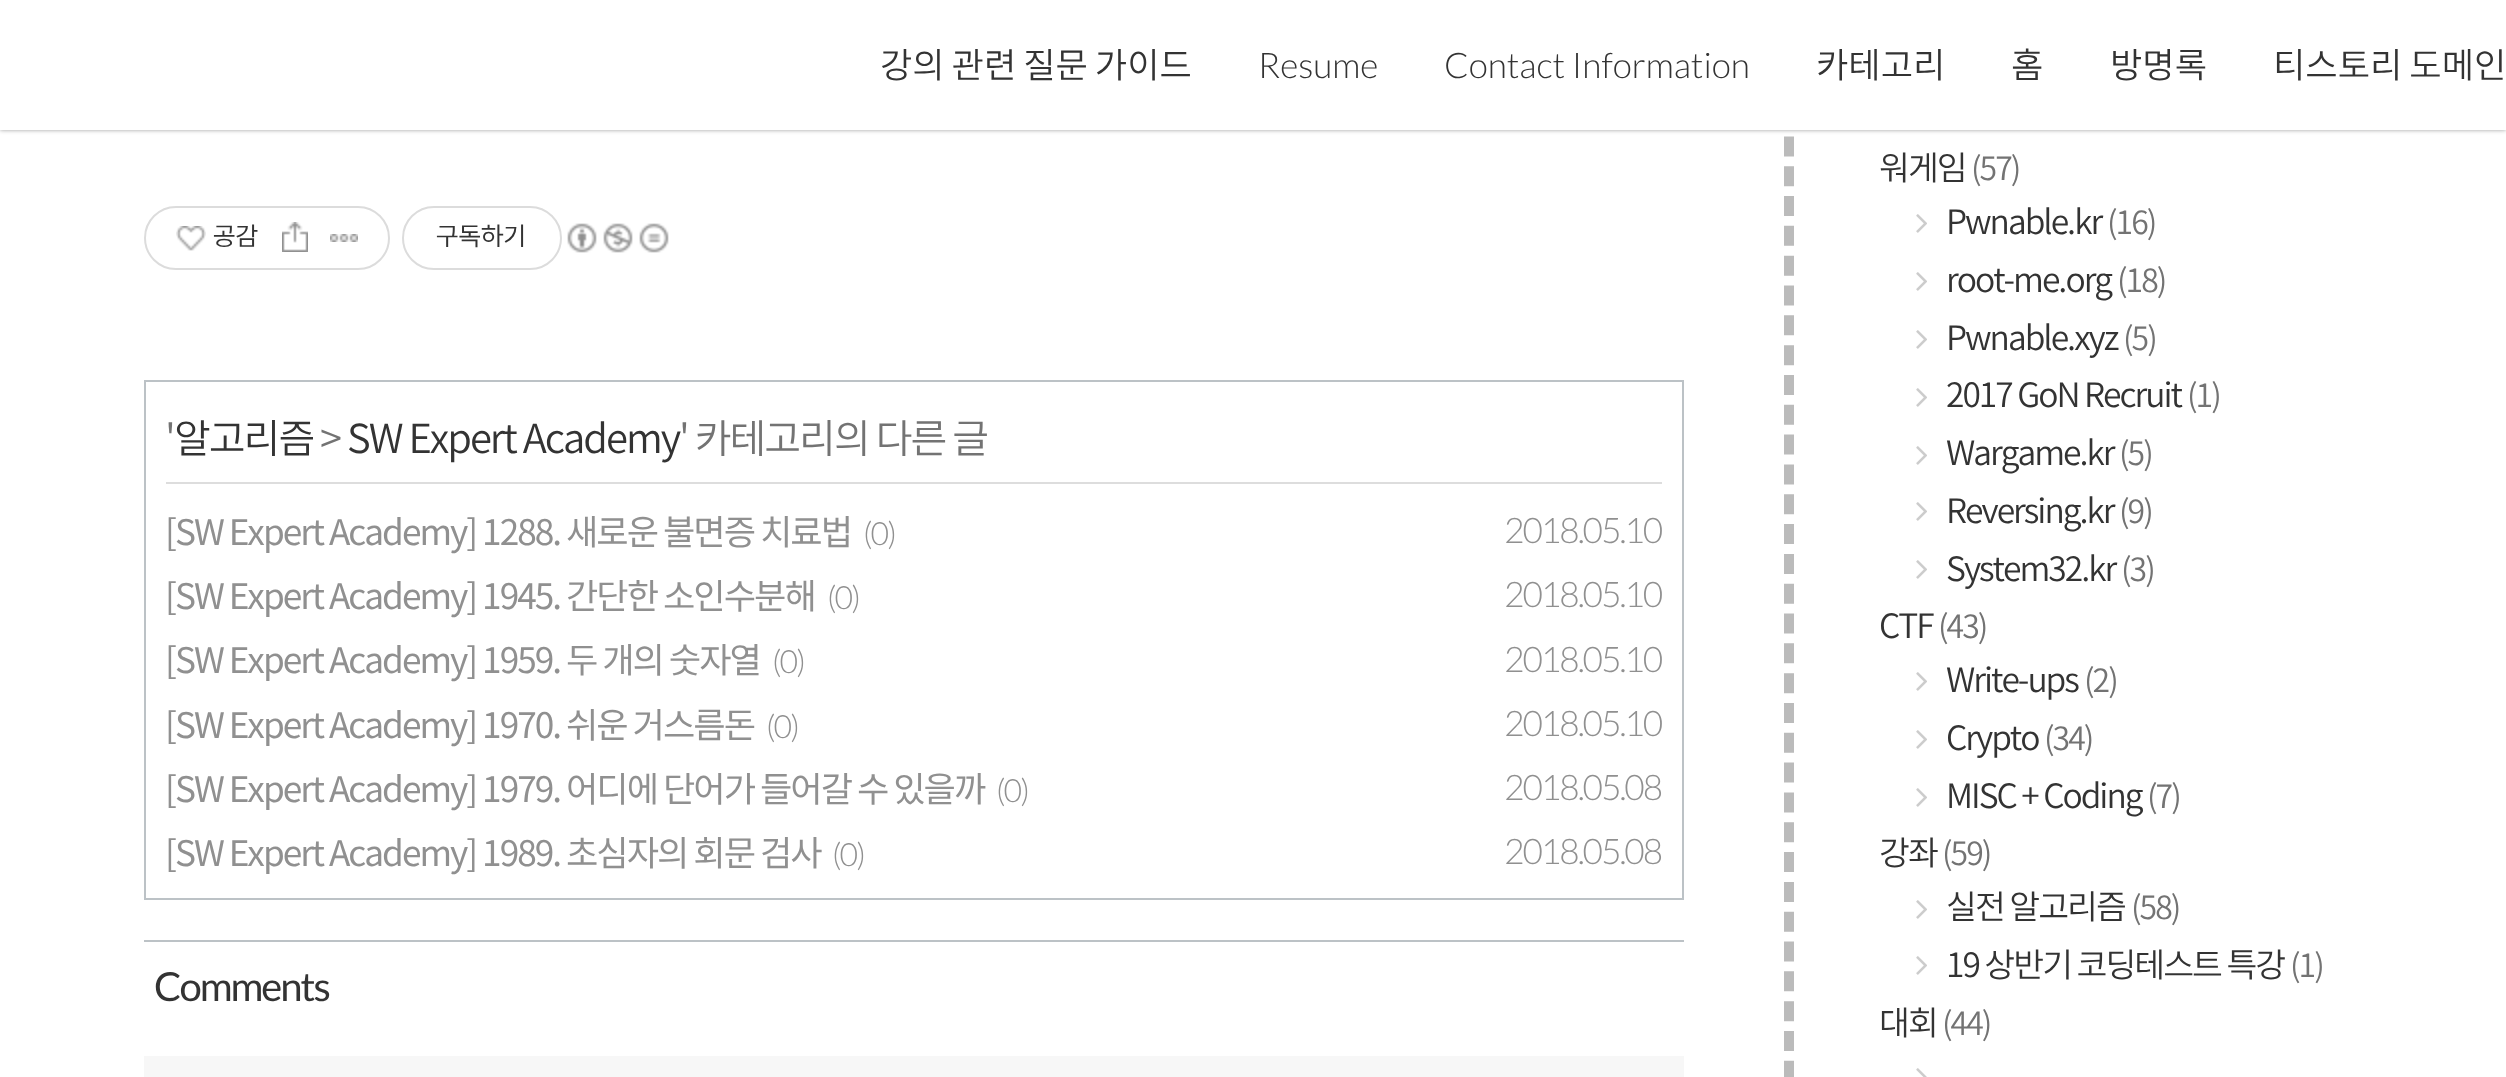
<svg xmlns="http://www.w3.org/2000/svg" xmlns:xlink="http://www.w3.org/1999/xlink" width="2506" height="1077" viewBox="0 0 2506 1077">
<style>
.cls-1{font:300 35.2px Noto Sans CJK KR;fill:#333333}
.cls-2{font:300 35.2px Lato;fill:#333333}
.cls-3{font:26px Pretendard;fill:#333333}
.cls-4{font:300 40px Noto Sans CJK KR;letter-spacing:-2px;fill:#737373}
.cls-5{font:300 40px Noto Sans CJK KR;letter-spacing:-2px;fill:#333333}
.cls-6{font:35.2px Noto Sans CJK KR;letter-spacing:-2px;fill:#909090}
.cls-7{font:300 32px Lato;letter-spacing:-2px;fill:#909090}
.cls-8{font:300 35.2px Lato;letter-spacing:-2px;fill:#909090}
.cls-9{font:40px Lato;letter-spacing:-2px;fill:#333333}
.cls-10{font:300 33.6px Noto Sans CJK KR;letter-spacing:-2px;fill:#333333}
.cls-11{font:300 32px Noto Sans CJK KR;letter-spacing:-2px;fill:#737373}
</style>
<rect width="100%" height="100%" fill="#ffffff"/>
<path fill="none" stroke="#bbbbbb" stroke-width="10" stroke-dasharray="20 9.82" d="M1789-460V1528"/>
<rect fill="#373737" fill-opacity="0.5" filter="blur(2px)" x="0" y="0" width="2506" height="130"/>
<rect fill="#ffffff" x="0" y="0" width="2506" height="130"/>
<rect fill="none" stroke="#dcdcdc" stroke-width="2" x="145" y="207" width="244" height="62" rx="31"/>
<image xlink:href="image0.png" x="176" y="226" width="30" height="25"/>
<image xlink:href="image1.png" x="282" y="222" width="26" height="30"/>
<image xlink:href="image2.png" x="330" y="234" width="28" height="8"/>
<rect fill="none" stroke="#dcdcdc" stroke-width="2" x="403" y="207" width="158" height="62" rx="31"/>
<image xlink:href="image3.png" x="567" y="223" width="30" height="30"/>
<image xlink:href="image4.png" x="603" y="223" width="30" height="30"/>
<image xlink:href="image5.png" x="639" y="223" width="30" height="30"/>
<rect fill="none" stroke="#bcc2c6" stroke-width="2" x="145" y="381" width="1538" height="518"/>
<rect fill="#dddddd" x="166" y="482" width="1496" height="2"/>
<rect fill="#bcc2c6" x="144" y="940" width="1540" height="2"/>
<rect fill="#f7f7f7" x="144" y="1056" width="1540" height="21"/>
<image xlink:href="image6.png" x="1916" y="214" width="11" height="19"/>
<image xlink:href="image6.png" x="1916" y="272" width="11" height="19"/>
<image xlink:href="image6.png" x="1916" y="330" width="11" height="19"/>
<image xlink:href="image6.png" x="1916" y="388" width="11" height="19"/>
<image xlink:href="image6.png" x="1916" y="446" width="11" height="19"/>
<image xlink:href="image6.png" x="1916" y="502" width="11" height="19"/>
<image xlink:href="image6.png" x="1916" y="560" width="11" height="19"/>
<image xlink:href="image6.png" x="1916" y="672" width="11" height="19"/>
<image xlink:href="image6.png" x="1916" y="730" width="11" height="19"/>
<image xlink:href="image6.png" x="1916" y="788" width="11" height="19"/>
<image xlink:href="image6.png" x="1916" y="900" width="11" height="19"/>
<image xlink:href="image6.png" x="1916" y="956" width="11" height="19"/>
<image xlink:href="image7.png" x="1916" y="1068" width="11" height="9"/>
<text class="cls-1" x="880" y="78" word-spacing="-1">강의 관련 질문 가이드</text>
<text class="cls-2" x="1258" y="78">Resume</text>
<text class="cls-2" x="1444" y="78">Contact Information</text>
<text class="cls-1" x="1816" y="78">카테고리</text>
<text class="cls-1" x="2011" y="78">홈</text>
<text class="cls-1" x="2110" y="78">방명록</text>
<text class="cls-1" x="2273" y="78" word-spacing="-1">티스토리 도메인</text>
<text class="cls-3" x="213" y="245">공감</text>
<text class="cls-3" x="436" y="245">구독하기</text>
<text class="cls-4" x="165" y="453">'</text>
<text class="cls-5" x="174" y="453">알고리즘</text>
<text class="cls-4" x="320" y="453">&gt;</text>
<text class="cls-5" x="347" y="453">SW Expert Academy</text>
<text class="cls-4" x="679" y="453">' 카테고리의 다른 글</text>
<text class="cls-6" x="165" y="545">[SW Expert Academy] 1288. 새로운 불면증 치료법</text>
<text class="cls-7" x="863" y="545">(0)</text>
<text class="cls-8" x="1504" y="543">2018.05.10</text>
<text class="cls-6" x="165" y="609">[SW Expert Academy] 1945. 간단한 소인수분해</text>
<text class="cls-7" x="827" y="609">(0)</text>
<text class="cls-8" x="1504" y="607">2018.05.10</text>
<text class="cls-6" x="165" y="673">[SW Expert Academy] 1959. 두 개의 숫자열</text>
<text class="cls-7" x="772" y="673">(0)</text>
<text class="cls-8" x="1504" y="672">2018.05.10</text>
<text class="cls-6" x="165" y="738">[SW Expert Academy] 1970. 쉬운 거스름돈</text>
<text class="cls-7" x="766" y="738">(0)</text>
<text class="cls-8" x="1504" y="736">2018.05.10</text>
<text class="cls-6" x="165" y="802">[SW Expert Academy] 1979. 어디에 단어가 들어갈 수 있을까</text>
<text class="cls-7" x="996" y="802">(0)</text>
<text class="cls-8" x="1504" y="800">2018.05.08</text>
<text class="cls-6" x="165" y="866">[SW Expert Academy] 1989. 초심자의 회문 검사</text>
<text class="cls-7" x="832" y="866">(0)</text>
<text class="cls-8" x="1504" y="864">2018.05.08</text>
<text class="cls-9" x="154" y="1001">Comments</text>
<text class="cls-10" x="1879" y="180">워게임</text>
<text class="cls-11" x="1971" y="180">(57)</text>
<text class="cls-10" x="1946" y="234">Pwnable.kr</text>
<text class="cls-11" x="2107" y="234">(16)</text>
<text class="cls-10" x="1946" y="292">root-me.org</text>
<text class="cls-11" x="2117" y="292">(18)</text>
<text class="cls-10" x="1946" y="350">Pwnable.xyz</text>
<text class="cls-11" x="2123" y="350">(5)</text>
<text class="cls-10" x="1946" y="407">2017 GoN Recruit</text>
<text class="cls-11" x="2187" y="407">(1)</text>
<text class="cls-10" x="1946" y="465">Wargame.kr</text>
<text class="cls-11" x="2119" y="465">(5)</text>
<text class="cls-10" x="1946" y="523">Reversing.kr</text>
<text class="cls-11" x="2119" y="523">(9)</text>
<text class="cls-10" x="1946" y="581">System32.kr</text>
<text class="cls-11" x="2121" y="581">(3)</text>
<text class="cls-10" x="1879" y="638">CTF</text>
<text class="cls-11" x="1938" y="638">(43)</text>
<text class="cls-10" x="1946" y="692">Write-ups</text>
<text class="cls-11" x="2084" y="692">(2)</text>
<text class="cls-10" x="1946" y="750">Crypto</text>
<text class="cls-11" x="2044" y="750">(34)</text>
<text class="cls-10" x="1946" y="808">MISC + Coding</text>
<text class="cls-11" x="2147" y="808">(7)</text>
<text class="cls-10" x="1879" y="865">강좌</text>
<text class="cls-11" x="1942" y="865">(59)</text>
<text class="cls-10" x="1946" y="919">실전 알고리즘</text>
<text class="cls-11" x="2131" y="919">(58)</text>
<text class="cls-10" x="1946" y="977">19 상반기 코딩테스트 특강</text>
<text class="cls-11" x="2290" y="977">(1)</text>
<text class="cls-10" x="1879" y="1035">대회</text>
<text class="cls-11" x="1942" y="1035">(44)</text>
</svg>
